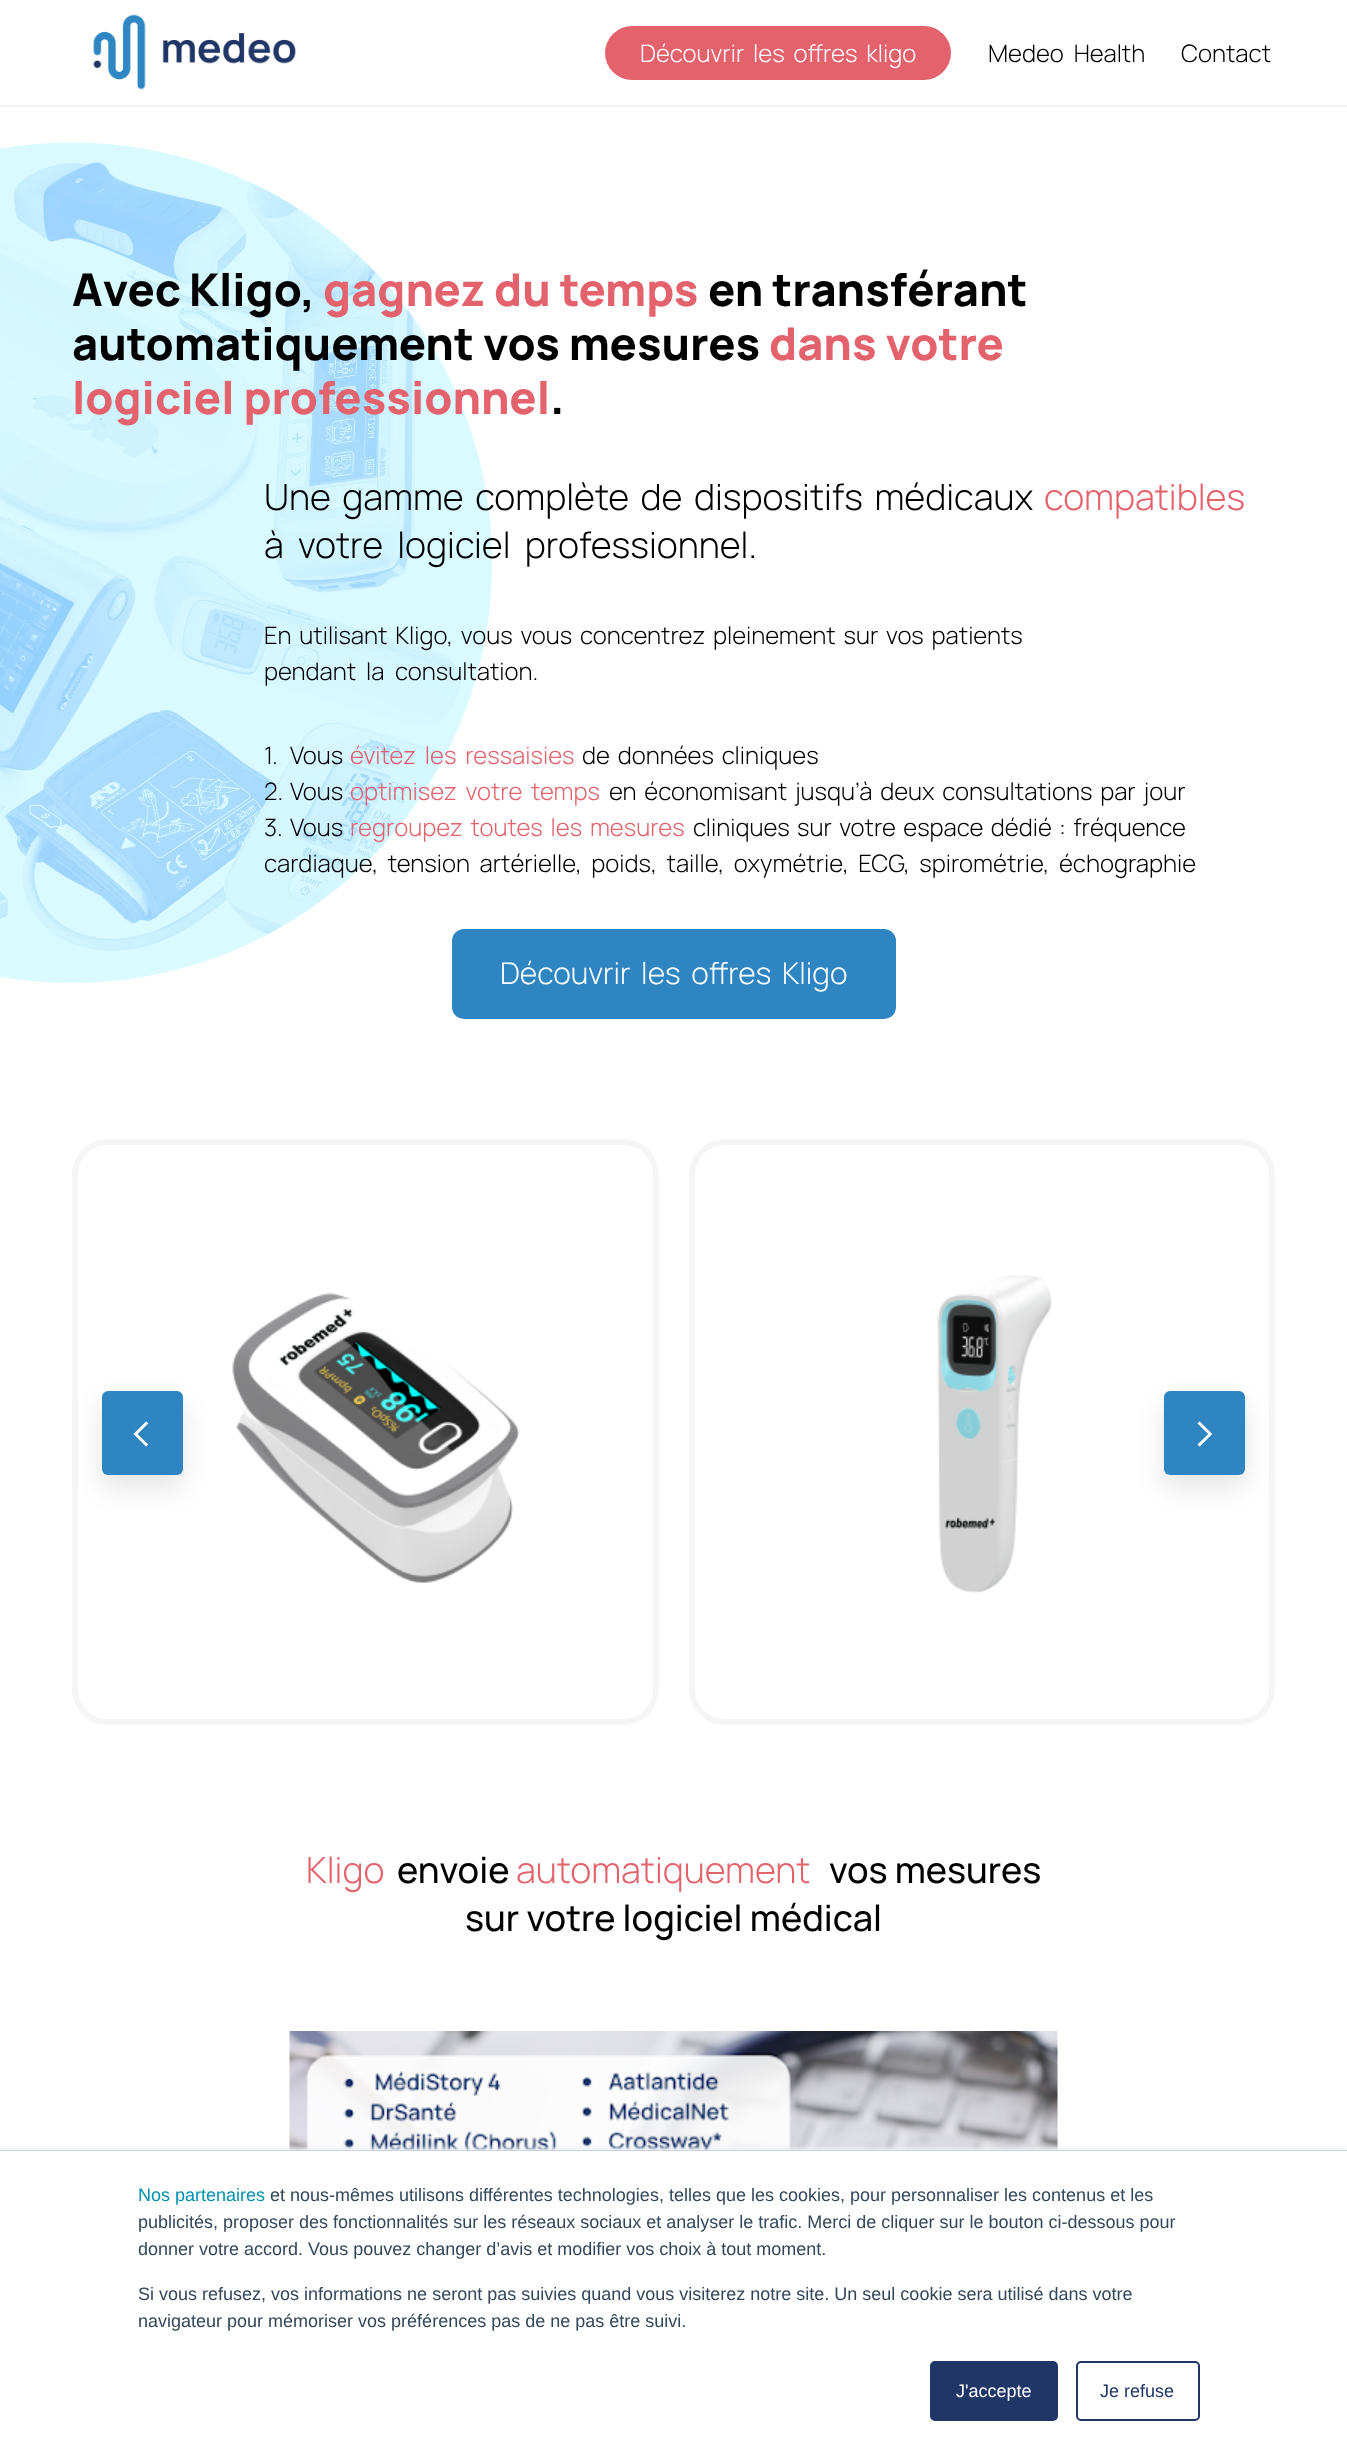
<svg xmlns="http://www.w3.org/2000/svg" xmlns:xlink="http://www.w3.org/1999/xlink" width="1347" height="2459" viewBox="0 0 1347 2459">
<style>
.cls-1{font:300 24px Manrope;fill:#ffffff}
.cls-2{font:300 24px Manrope;fill:#000000}
.cls-3{font:800 45px Manrope;fill:#000000}
.cls-4{font:800 45px Manrope;fill:#e3626c}
.cls-5{font:300 36px Manrope;fill:#000000}
.cls-6{font:300 36px Manrope;fill:#e3626c}
.cls-7{font:300 24px Manrope;fill:#e3626c}
.cls-8{font:300 30px Manrope;fill:#ffffff}
.cls-9{font:300 54px Manrope;fill:#ffffff}
.cls-10{font:500 36px Manrope;fill:#000000}
.cls-11{font:18px Liberation Sans;fill:#0091ae}
.cls-12{font:18px Liberation Sans;fill:#33475b}
.cls-13{font:18px Liberation Sans;fill:#ffffff}
.cls-14{font:18px Liberation Sans;fill:#1f3666}
</style>
<rect width="100%" height="100%" fill="#ffffff"/>
<rect fill="#f3f4f6" x="0" y="105" width="1347" height="2"/>
<image xlink:href="image0.png" x="93" y="14" width="203" height="76"/>
<rect fill="#e3626c" x="605" y="26" width="346" height="54" rx="27"/>
<circle fill="#e0f9ff" cx="72" cy="563" r="420"/>
<image xlink:href="image1.png" x="0" y="142" width="492" height="840"/>
<rect fill="#2e85c1" x="452" y="929" width="444" height="90" rx="12"/>
<rect fill="none" stroke="#f5f5f5" stroke-width="6" x="75" y="1142" width="581" height="580" rx="33"/>
<image xlink:href="image2.png" x="232" y="1292" width="288" height="291"/>
<rect fill="none" stroke="#f5f5f5" stroke-width="6" x="692" y="1142" width="580" height="580" rx="33"/>
<image xlink:href="image3.png" x="937" y="1275" width="115" height="318"/>
<rect fill="#000000" fill-opacity="0.1" filter="blur(13.5px)" x="102" y="1404" width="81" height="84" rx="6"/>
<rect fill="#2e85c1" x="102" y="1391" width="81" height="84" rx="6"/>
<rect fill="#000000" fill-opacity="0.1" filter="blur(13.5px)" x="1164" y="1404" width="81" height="84" rx="6"/>
<rect fill="#2e85c1" x="1164" y="1391" width="81" height="84" rx="6"/>
<image xlink:href="image4.png" x="289" y="2031" width="769" height="119"/>
<rect fill="#eaf0f6" filter="blur(2px)" x="0" y="2148" width="1347" height="311"/>
<rect fill="#cbd6e2" x="0" y="2150" width="1347" height="1"/>
<rect fill="#ffffff" x="0" y="2151" width="1347" height="308"/>
<rect fill="#1f3666" stroke="#1f3666" stroke-width="2" x="931" y="2362" width="126" height="58" rx="4"/>
<rect fill="none" stroke="#1f3666" stroke-width="2" x="1077" y="2362" width="122" height="58" rx="4"/>
<text class="cls-1" x="640" y="62" word-spacing="4">Découvrir les offres kligo</text>
<text class="cls-2" x="988" y="62" word-spacing="5">Medeo Health</text>
<text class="cls-2" x="1181" y="62">Contact</text>
<text class="cls-3" x="72" y="306" word-spacing="-1">Avec Kligo,</text>
<text class="cls-4" x="323" y="306">gagnez du temps</text>
<text class="cls-3" x="708" y="306">en transférant</text>
<text class="cls-3" x="72" y="360">automatiquement vos mesures</text>
<text class="cls-4" x="769" y="360">dans votre</text>
<text class="cls-4" x="72" y="414">logiciel professionnel</text>
<text class="cls-3" x="550" y="414">.</text>
<text class="cls-5" x="264" y="510" word-spacing="4.25">Une gamme complète de dispositifs médicaux</text>
<text class="cls-6" x="1044" y="510">compatibles</text>
<text class="cls-5" x="264" y="558" word-spacing="7">à votre logiciel professionnel.</text>
<text class="cls-2"><tspan x="264" y="644" word-spacing="3">En utilisant Kligo, vous vous concentrez pleinement sur vos patients</tspan><tspan x="264" y="680">pendant</tspan></text>
<text class="cls-2" x="366" y="680">la</text>
<text class="cls-2" x="395" y="680">consultation.</text>
<text class="cls-2" x="264" y="764">1.</text>
<text class="cls-2" x="290" y="764">Vous</text>
<text class="cls-7" x="350" y="764" word-spacing="4">évitez les ressaisies</text>
<text class="cls-2" x="582" y="764" word-spacing="3">de données cliniques</text>
<text class="cls-2" x="264" y="800">2.</text>
<text class="cls-2" x="290" y="800">Vous</text>
<text class="cls-7" x="350" y="800" word-spacing="4">optimisez votre temps</text>
<text class="cls-2" x="609" y="800" word-spacing="3">en économisant jusqu’à deux consultations par jour</text>
<text class="cls-2" x="264" y="836">3.</text>
<text class="cls-2" x="290" y="836">Vous</text>
<text class="cls-7" x="350" y="836" word-spacing="3">regroupez toutes les mesures</text>
<text class="cls-2" x="693" y="836" word-spacing="2.5">cliniques sur votre espace dédié : fréquence</text>
<text class="cls-2" x="264" y="872" word-spacing="4.75">cardiaque, tension artérielle, poids, taille, oxymétrie, ECG, spirométrie, échographie</text>
<text class="cls-8" x="500" y="984" word-spacing="4.75">Découvrir les offres Kligo</text>
<text class="cls-9" x="126" y="1451">&lt;</text>
<text class="cls-9" x="1187" y="1451">&gt;</text>
<text class="cls-6" x="306" y="1883">Kligo</text>
<text class="cls-10" x="397" y="1883">envoie</text>
<text class="cls-6" x="516" y="1883">automatiquement</text>
<text class="cls-10" x="829" y="1883">vos mesures</text>
<text class="cls-10" x="465" y="1931">sur votre logiciel médical</text>
<text class="cls-11" x="138" y="2201">Nos partenaires</text>
<text class="cls-12" x="270" y="2201">et nous-mêmes utilisons différentes technologies, telles que les cookies, pour personnaliser les contenus et les</text>
<text class="cls-12"><tspan x="138" y="2228">publicités, proposer des fonctionnalités sur les réseaux sociaux et analyser le trafic. Merci de cliquer sur le bouton ci-dessous pour</tspan><tspan x="138" y="2255">donner votre accord. Vous pouvez changer d’avis et modifier vos choix à tout moment.</tspan></text>
<text class="cls-12"><tspan x="138" y="2300">Si vous refusez, vos informations ne seront pas suivies quand vous visiterez notre site. Un seul cookie sera utilisé dans votre</tspan><tspan x="138" y="2327">navigateur pour mémoriser vos préférences pas de ne pas être suivi.</tspan></text>
<text class="cls-13" x="956" y="2397">J'accepte</text>
<text class="cls-14" x="1100" y="2397">Je refuse</text>
</svg>
